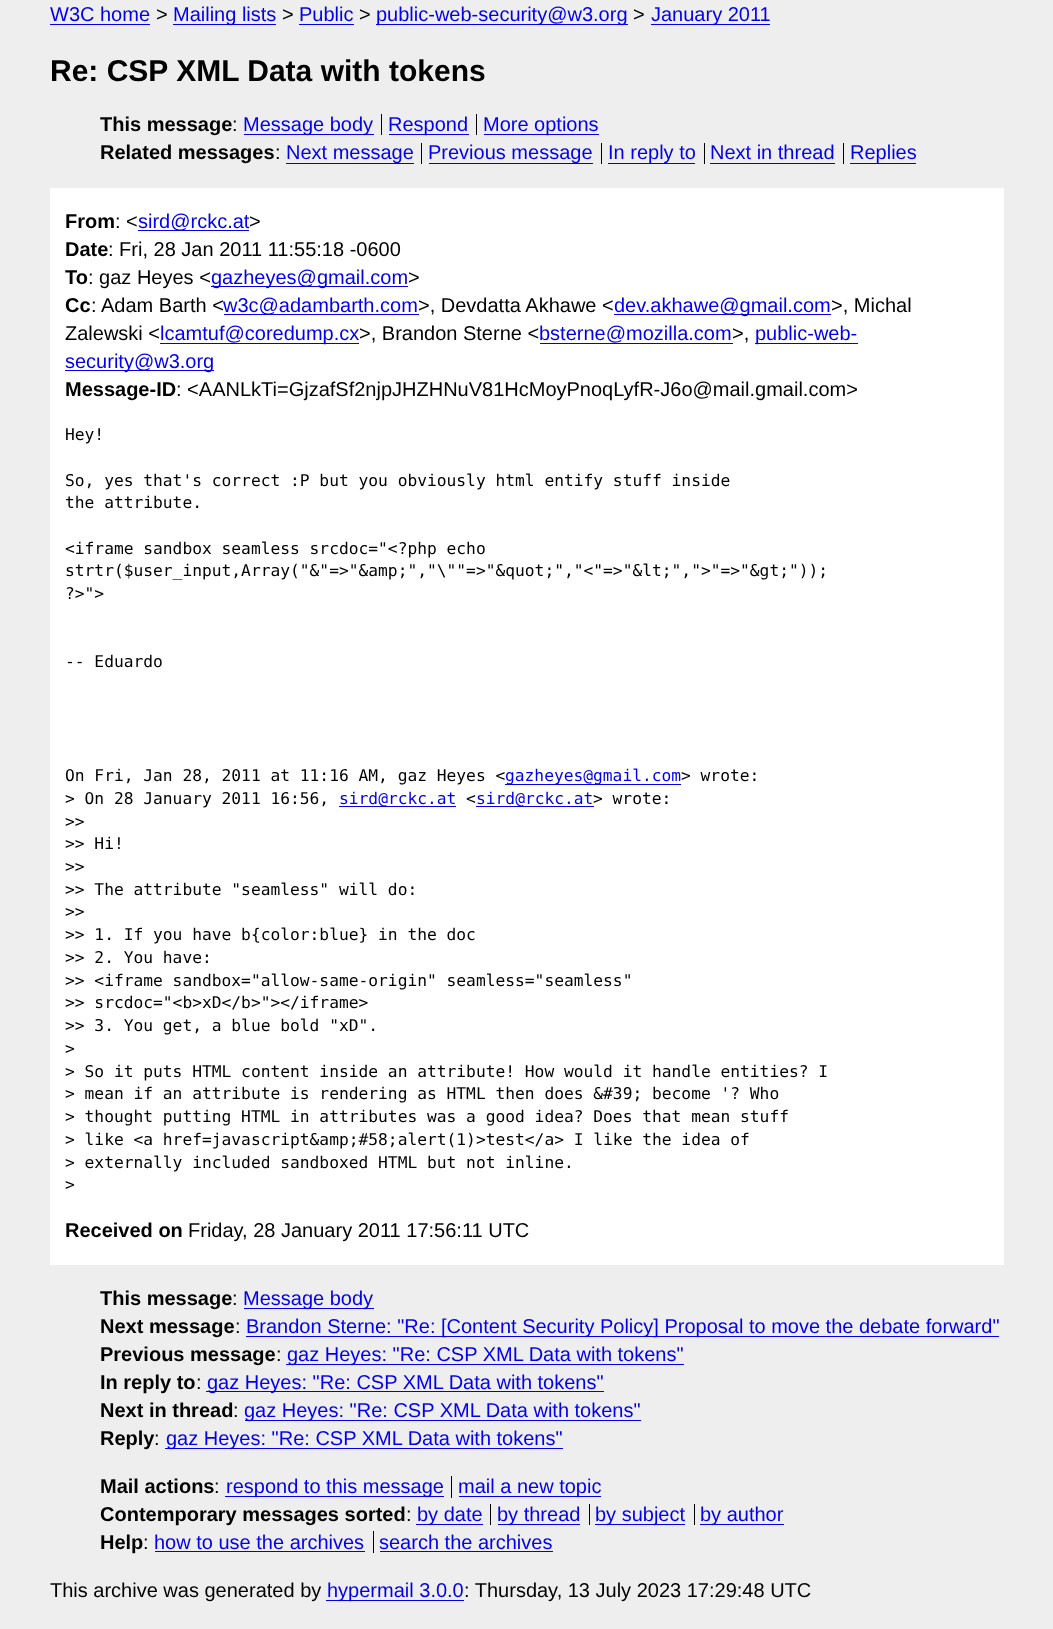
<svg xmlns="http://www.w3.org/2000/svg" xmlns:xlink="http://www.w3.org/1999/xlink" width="1053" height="1629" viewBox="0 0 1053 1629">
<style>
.cls-1{font:20px Liberation Sans;fill:#0000ee}
.cls-2{font:20px Liberation Sans;fill:#000000}
.cls-3{font:bold 30px Liberation Sans;fill:#000000}
.cls-4{font:bold 20px Liberation Sans;fill:#000000}
.cls-5{font:16.25px DejaVu Sans Mono;fill:#000000}
.cls-6{font:16.25px DejaVu Sans Mono;fill:#0000ee}
</style>
<rect width="100%" height="100%" fill="#eeeeee"/>
<rect fill="#0000ee" x="50" y="24" width="100" height="1"/>
<rect fill="#0000ee" x="173" y="24" width="103" height="1"/>
<rect fill="#0000ee" x="299" y="24" width="55" height="1"/>
<rect fill="#0000ee" x="376" y="24" width="252" height="1"/>
<rect fill="#0000ee" x="651" y="24" width="119" height="1"/>
<rect fill="#000000" x="381" y="114" width="1" height="21"/>
<rect fill="#0000ee" x="244" y="134" width="130" height="1"/>
<rect fill="#0000ee" x="389" y="134" width="80" height="1"/>
<rect fill="#000000" x="476" y="114" width="1" height="21"/>
<rect fill="#0000ee" x="484" y="134" width="115" height="1"/>
<rect fill="#0000ee" x="286" y="163" width="128" height="1"/>
<rect fill="#000000" x="421" y="143" width="1" height="21"/>
<rect fill="#0000ee" x="429" y="163" width="164" height="1"/>
<rect fill="#000000" x="601" y="143" width="1" height="21"/>
<rect fill="#0000ee" x="608" y="163" width="87" height="1"/>
<rect fill="#000000" x="704" y="143" width="1" height="21"/>
<rect fill="#0000ee" x="710" y="163" width="125" height="1"/>
<rect fill="#000000" x="843" y="143" width="1" height="21"/>
<rect fill="#0000ee" x="850" y="163" width="66" height="1"/>
<rect fill="#ffffff" x="50" y="188" width="954" height="1077"/>
<rect fill="#0000ee" x="138" y="230" width="111" height="1"/>
<rect fill="#0000ee" x="211" y="286" width="197" height="1"/>
<rect fill="#0000ee" x="224" y="314" width="195" height="1"/>
<rect fill="#0000ee" x="614" y="314" width="217" height="1"/>
<rect fill="#0000ee" x="160" y="343" width="199" height="1"/>
<rect fill="#0000ee" x="540" y="343" width="193" height="1"/>
<rect fill="#0000ee" x="755" y="343" width="103" height="1"/>
<rect fill="#0000ee" x="65" y="370" width="149" height="1"/>
<rect fill="#0000ee" x="505" y="784" width="176" height="1"/>
<rect fill="#0000ee" x="339" y="806" width="117" height="1"/>
<rect fill="#0000ee" x="476" y="806" width="118" height="1"/>
<rect fill="#0000ee" x="244" y="1308" width="130" height="1"/>
<rect fill="#0000ee" x="246" y="1336" width="753" height="1"/>
<rect fill="#0000ee" x="286" y="1364" width="398" height="1"/>
<rect fill="#0000ee" x="206" y="1391" width="398" height="1"/>
<rect fill="#0000ee" x="245" y="1420" width="396" height="1"/>
<rect fill="#0000ee" x="165" y="1448" width="398" height="1"/>
<rect fill="#0000ee" x="225" y="1496" width="219" height="1"/>
<rect fill="#000000" x="451" y="1476" width="1" height="22"/>
<rect fill="#0000ee" x="459" y="1496" width="142" height="1"/>
<rect fill="#0000ee" x="416" y="1524" width="67" height="1"/>
<rect fill="#000000" x="490" y="1504" width="1" height="21"/>
<rect fill="#0000ee" x="498" y="1524" width="82" height="1"/>
<rect fill="#000000" x="589" y="1504" width="1" height="21"/>
<rect fill="#0000ee" x="595" y="1524" width="90" height="1"/>
<rect fill="#000000" x="694" y="1504" width="1" height="21"/>
<rect fill="#0000ee" x="700" y="1524" width="84" height="1"/>
<rect fill="#0000ee" x="155" y="1551" width="210" height="1"/>
<rect fill="#000000" x="373" y="1531" width="1" height="22"/>
<rect fill="#0000ee" x="380" y="1551" width="173" height="1"/>
<rect fill="#0000ee" x="326" y="1600" width="138" height="1"/>
<text class="cls-1" x="50" y="21">W3C home</text>
<text class="cls-2" x="156" y="21">&gt;</text>
<text class="cls-1" x="173" y="21">Mailing lists</text>
<text class="cls-2" x="282" y="21">&gt;</text>
<text class="cls-1" x="299" y="21">Public</text>
<text class="cls-2" x="359" y="21">&gt;</text>
<text class="cls-1" x="376" y="21">public-web-security@w3.org</text>
<text class="cls-2" x="633" y="21">&gt;</text>
<text class="cls-1" x="651" y="21">January 2011</text>
<text class="cls-3" x="50" y="81">Re: CSP XML Data with tokens</text>
<text class="cls-4" x="100" y="131">This message</text>
<text class="cls-2" x="232" y="131">:</text>
<text class="cls-1" x="243" y="131">Message body</text>
<text class="cls-1" x="388" y="131">Respond</text>
<text class="cls-1" x="483" y="131">More options</text>
<text class="cls-4" x="100" y="159">Related messages</text>
<text class="cls-2" x="275" y="159">:</text>
<text class="cls-1" x="286" y="159">Next message</text>
<text class="cls-1" x="428" y="159">Previous message</text>
<text class="cls-1" x="608" y="159">In reply to</text>
<text class="cls-1" x="710" y="159">Next in thread</text>
<text class="cls-1" x="850" y="159">Replies</text>
<text class="cls-4" x="65" y="228">From</text>
<text class="cls-2" x="115" y="228">: &lt;</text>
<text class="cls-1" x="138" y="228">sird@rckc.at</text>
<text class="cls-2" x="249" y="228">&gt;</text>
<text class="cls-4" x="65" y="256">Date</text>
<text class="cls-2" x="108" y="256">: Fri, 28 Jan 2011 11:55:18 -0600</text>
<text class="cls-4" x="65" y="284">To</text>
<text class="cls-2" x="88" y="284">: gaz Heyes &lt;</text>
<text class="cls-1" x="211" y="284">gazheyes@gmail.com</text>
<text class="cls-2" x="408" y="284">&gt;</text>
<text class="cls-4" x="65" y="312">Cc</text>
<text class="cls-2" x="91" y="312">: Adam Barth &lt;</text>
<text class="cls-1" x="223" y="312">w3c@adambarth.com</text>
<text class="cls-2" x="418" y="312">&gt;, Devdatta Akhawe &lt;</text>
<text class="cls-1" x="614" y="312">dev.akhawe@gmail.com</text>
<text class="cls-2" x="831" y="312">&gt;, Michal</text>
<text class="cls-2" x="65" y="340">Zalewski &lt;</text>
<text class="cls-1" x="160" y="340">lcamtuf@coredump.cx</text>
<text class="cls-2" x="359" y="340">&gt;, Brandon Sterne &lt;</text>
<text class="cls-1" x="539" y="340">bsterne@mozilla.com</text>
<text class="cls-2" x="732" y="340">&gt;,</text>
<text class="cls-1" x="755" y="340">public-web-</text>
<text class="cls-1" x="65" y="368">security@w3.org</text>
<text class="cls-4" x="65" y="396">Message-ID</text>
<text class="cls-2" x="176" y="396">: &lt;AANLkTi=GjzafSf2njpJHZHNuV81HcMoyPnoqLyfR-J6o@mail.gmail.com&gt;</text>
<text class="cls-5" x="65" y="440">Hey!</text>
<text class="cls-5"><tspan x="65" y="486">So, yes that's correct :P but you obviously html entify stuff inside</tspan><tspan x="65" y="508">the attribute.</tspan></text>
<text class="cls-5"><tspan x="65" y="554">&lt;iframe sandbox seamless srcdoc="&lt;?php echo</tspan><tspan x="65" y="576">strtr($user_input,Array("&amp;"=&gt;"&amp;amp;","\""=&gt;"&amp;quot;","&lt;"=&gt;"&amp;lt;","&gt;"=&gt;"&amp;gt;"));</tspan><tspan x="65" y="599">?&gt;"&gt;</tspan></text>
<text class="cls-5" x="65" y="667">-- Eduardo</text>
<text class="cls-5" x="65" y="781">On Fri, Jan 28, 2011 at 11:16 AM, gaz Heyes &lt;</text>
<text class="cls-6" x="505" y="781">gazheyes@gmail.com</text>
<text class="cls-5" x="681" y="781">&gt; wrote:</text>
<text class="cls-5" x="65" y="804">&gt; On 28 January 2011 16:56,</text>
<text class="cls-6" x="339" y="804">sird@rckc.at</text>
<text class="cls-5" x="466" y="804">&lt;</text>
<text class="cls-6" x="476" y="804">sird@rckc.at</text>
<text class="cls-5" x="593" y="804">&gt; wrote:</text>
<text class="cls-5"><tspan x="65" y="827">&gt;&gt;</tspan><tspan x="65" y="849">&gt;&gt; Hi!</tspan><tspan x="65" y="872">&gt;&gt;</tspan><tspan x="65" y="895">&gt;&gt; The attribute "seamless" will do:</tspan><tspan x="65" y="917">&gt;&gt;</tspan><tspan x="65" y="940">&gt;&gt; 1. If you have b{color:blue} in the doc</tspan><tspan x="65" y="963">&gt;&gt; 2. You have:</tspan><tspan x="65" y="986">&gt;&gt; &lt;iframe sandbox="allow-same-origin" seamless="seamless"</tspan><tspan x="65" y="1008">&gt;&gt; srcdoc="&lt;b&gt;xD&lt;/b&gt;"&gt;&lt;/iframe&gt;</tspan><tspan x="65" y="1031">&gt;&gt; 3. You get, a blue bold "xD".</tspan><tspan x="65" y="1054">&gt;</tspan><tspan x="65" y="1077">&gt; So it puts HTML content inside an attribute! How would it handle entities? I</tspan><tspan x="65" y="1099">&gt; mean if an attribute is rendering as HTML then does &amp;#39; become '? Who</tspan><tspan x="65" y="1122">&gt; thought putting HTML in attributes was a good idea? Does that mean stuff</tspan><tspan x="65" y="1145">&gt; like &lt;a href=javascript&amp;amp;#58;alert(1)&gt;test&lt;/a&gt; I like the idea of</tspan><tspan x="65" y="1168">&gt; externally included sandboxed HTML but not inline.</tspan><tspan x="65" y="1190">&gt;</tspan></text>
<text class="cls-4" x="65" y="1237">Received on</text>
<text class="cls-2" x="188" y="1237">Friday, 28 January 2011 17:56:11 UTC</text>
<text class="cls-4" x="100" y="1305">This message</text>
<text class="cls-2" x="232" y="1305">:</text>
<text class="cls-1" x="243" y="1305">Message body</text>
<text class="cls-4" x="100" y="1333">Next message</text>
<text class="cls-2" x="235" y="1333">:</text>
<text class="cls-1" x="246" y="1333">Brandon Sterne: "Re: [Content Security Policy] Proposal to move the debate forward"</text>
<text class="cls-4" x="100" y="1361">Previous message</text>
<text class="cls-2" x="276" y="1361">:</text>
<text class="cls-1" x="287" y="1361">gaz Heyes: "Re: CSP XML Data with tokens"</text>
<text class="cls-4" x="100" y="1389">In reply to</text>
<text class="cls-2" x="196" y="1389">:</text>
<text class="cls-1" x="207" y="1389">gaz Heyes: "Re: CSP XML Data with tokens"</text>
<text class="cls-4" x="100" y="1417">Next in thread</text>
<text class="cls-2" x="233" y="1417">:</text>
<text class="cls-1" x="244" y="1417">gaz Heyes: "Re: CSP XML Data with tokens"</text>
<text class="cls-4" x="100" y="1445">Reply</text>
<text class="cls-2" x="154" y="1445">:</text>
<text class="cls-1" x="166" y="1445">gaz Heyes: "Re: CSP XML Data with tokens"</text>
<text class="cls-4" x="100" y="1493">Mail actions</text>
<text class="cls-2" x="214" y="1493">:</text>
<text class="cls-1" x="226" y="1493">respond to this message</text>
<text class="cls-1" x="458" y="1493">mail a new topic</text>
<text class="cls-4" x="100" y="1521">Contemporary messages sorted</text>
<text class="cls-2" x="406" y="1521">:</text>
<text class="cls-1" x="417" y="1521">by date</text>
<text class="cls-1" x="497" y="1521">by thread</text>
<text class="cls-1" x="595" y="1521">by subject</text>
<text class="cls-1" x="700" y="1521">by author</text>
<text class="cls-4" x="100" y="1549">Help</text>
<text class="cls-2" x="143" y="1549">:</text>
<text class="cls-1" x="154" y="1549">how to use the archives</text>
<text class="cls-1" x="379" y="1549">search the archives</text>
<text class="cls-2" x="50" y="1597">This archive was generated by</text>
<text class="cls-1" x="327" y="1597">hypermail 3.0.0</text>
<text class="cls-2" x="464" y="1597">: Thursday, 13 July 2023 17:29:48 UTC</text>
</svg>
